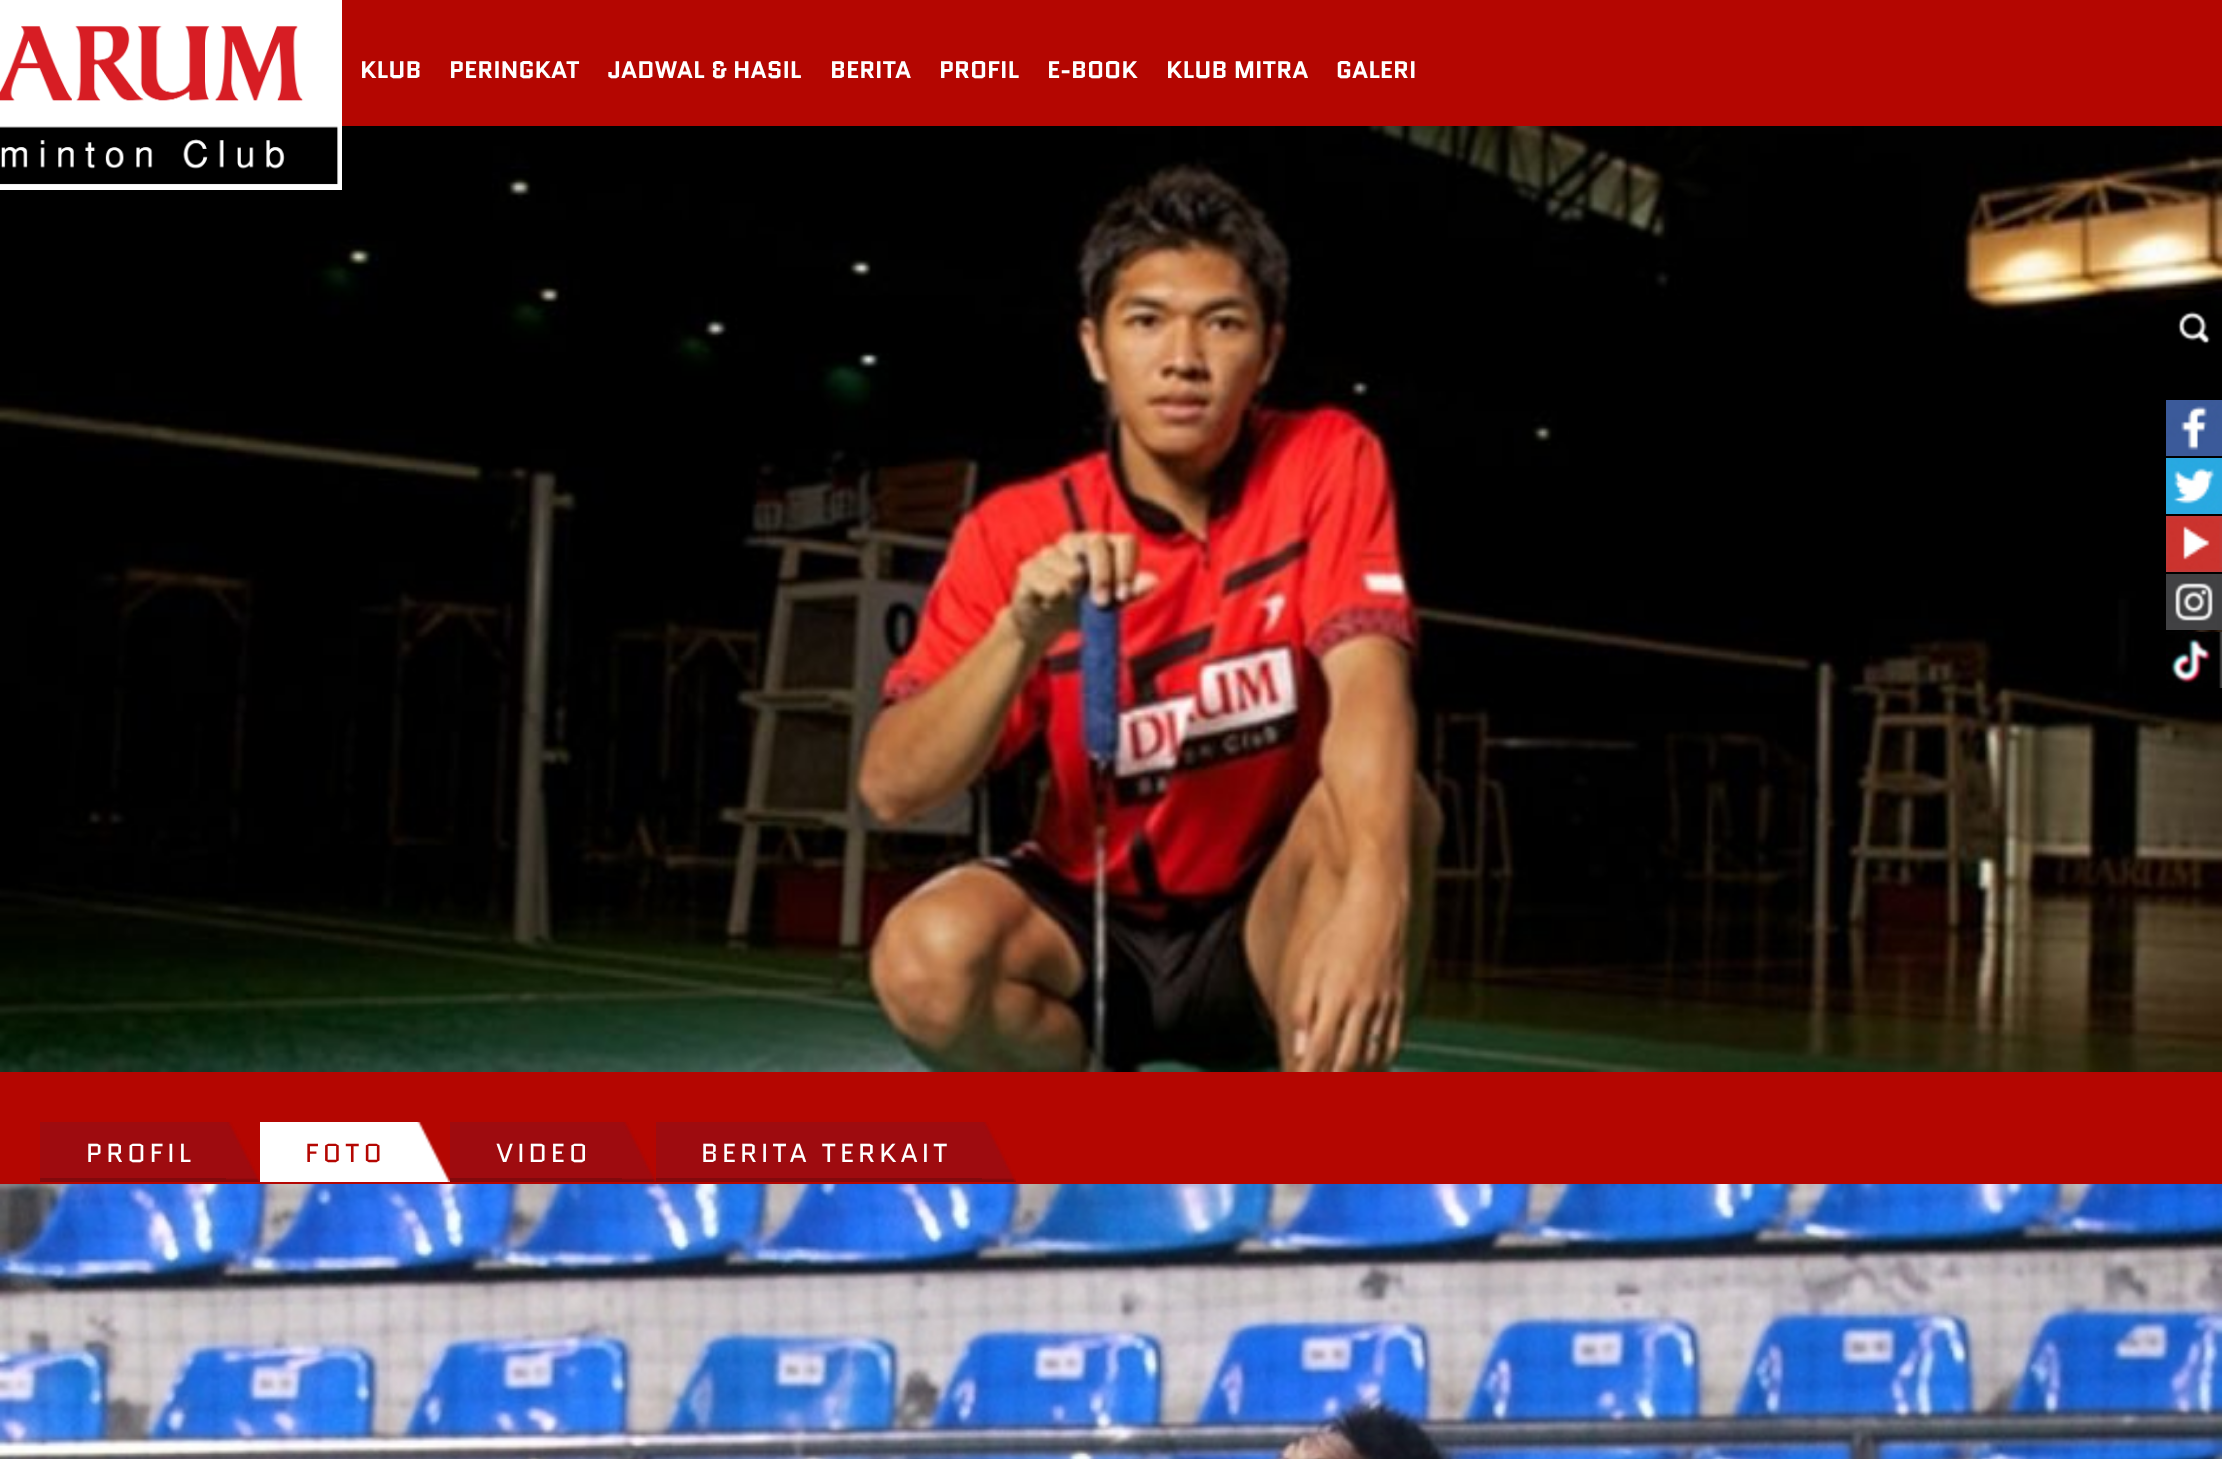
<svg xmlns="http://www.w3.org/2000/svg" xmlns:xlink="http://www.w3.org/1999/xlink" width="2222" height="1459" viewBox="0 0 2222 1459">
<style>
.cls-1{font:bold 24px quantico;fill:#ffffff}
.cls-2{font:26px quantico;letter-spacing:4px;fill:#ffffff}
.cls-3{font:26px quantico;letter-spacing:4px;fill:#b40601}
</style>
<rect width="100%" height="100%" fill="#b40601"/>
<image xlink:href="image1.png" x="0" y="126" width="2222" height="946"/>
<image xlink:href="image0.png" x="0" y="0" width="340" height="186"/>
<rect fill="#ffffff" x="340" y="0" width="2" height="190"/>
<rect fill="#ffffff" x="0" y="186" width="342" height="4"/>
<rect fill="#9e0b0f" x="40" y="1122" width="186" height="56"/>
<rect fill="#81090c" x="40" y="1178" width="186" height="4"/>
<image xlink:href="image2.png" x="226" y="1122" width="34" height="60"/>
<rect fill="#ffffff" x="260" y="1122" width="156" height="60"/>
<image xlink:href="image3.png" x="416" y="1122" width="34" height="60"/>
<rect fill="#9e0b0f" x="450" y="1122" width="172" height="56"/>
<rect fill="#81090c" x="450" y="1178" width="172" height="4"/>
<image xlink:href="image2.png" x="622" y="1122" width="34" height="60"/>
<rect fill="#9e0b0f" x="656" y="1122" width="326" height="56"/>
<rect fill="#81090c" x="656" y="1178" width="326" height="4"/>
<image xlink:href="image2.png" x="982" y="1122" width="34" height="60"/>
<image xlink:href="image4.png" x="0" y="1184" width="2222" height="275"/>
<image xlink:href="image5.png" x="2166" y="300" width="45" height="45"/>
<image xlink:href="image6.png" x="2166" y="400" width="56" height="56"/>
<image xlink:href="image7.png" x="2166" y="458" width="56" height="56"/>
<image xlink:href="image8.png" x="2166" y="516" width="56" height="56"/>
<image xlink:href="image9.png" x="2166" y="574" width="56" height="56"/>
<image xlink:href="image10.png" x="2166" y="632" width="56" height="56"/>
<text class="cls-1" x="360" y="78">KLUB</text>
<text class="cls-1" x="449" y="78">PERINGKAT</text>
<text class="cls-1" x="608" y="78">JADWAL &amp; HASIL</text>
<text class="cls-1" x="830" y="78">BERITA</text>
<text class="cls-1" x="939" y="78">PROFIL</text>
<text class="cls-1" x="1047" y="78">E-BOOK</text>
<text class="cls-1" x="1166" y="78">KLUB MITRA</text>
<text class="cls-1" x="1336" y="78">GALERI</text>
<text class="cls-2" x="86" y="1162">PROFIL</text>
<text class="cls-3" x="305" y="1162">FOTO</text>
<text class="cls-2" x="496" y="1162">VIDEO</text>
<text class="cls-2" x="701" y="1162">BERITA TERKAIT</text>
</svg>
